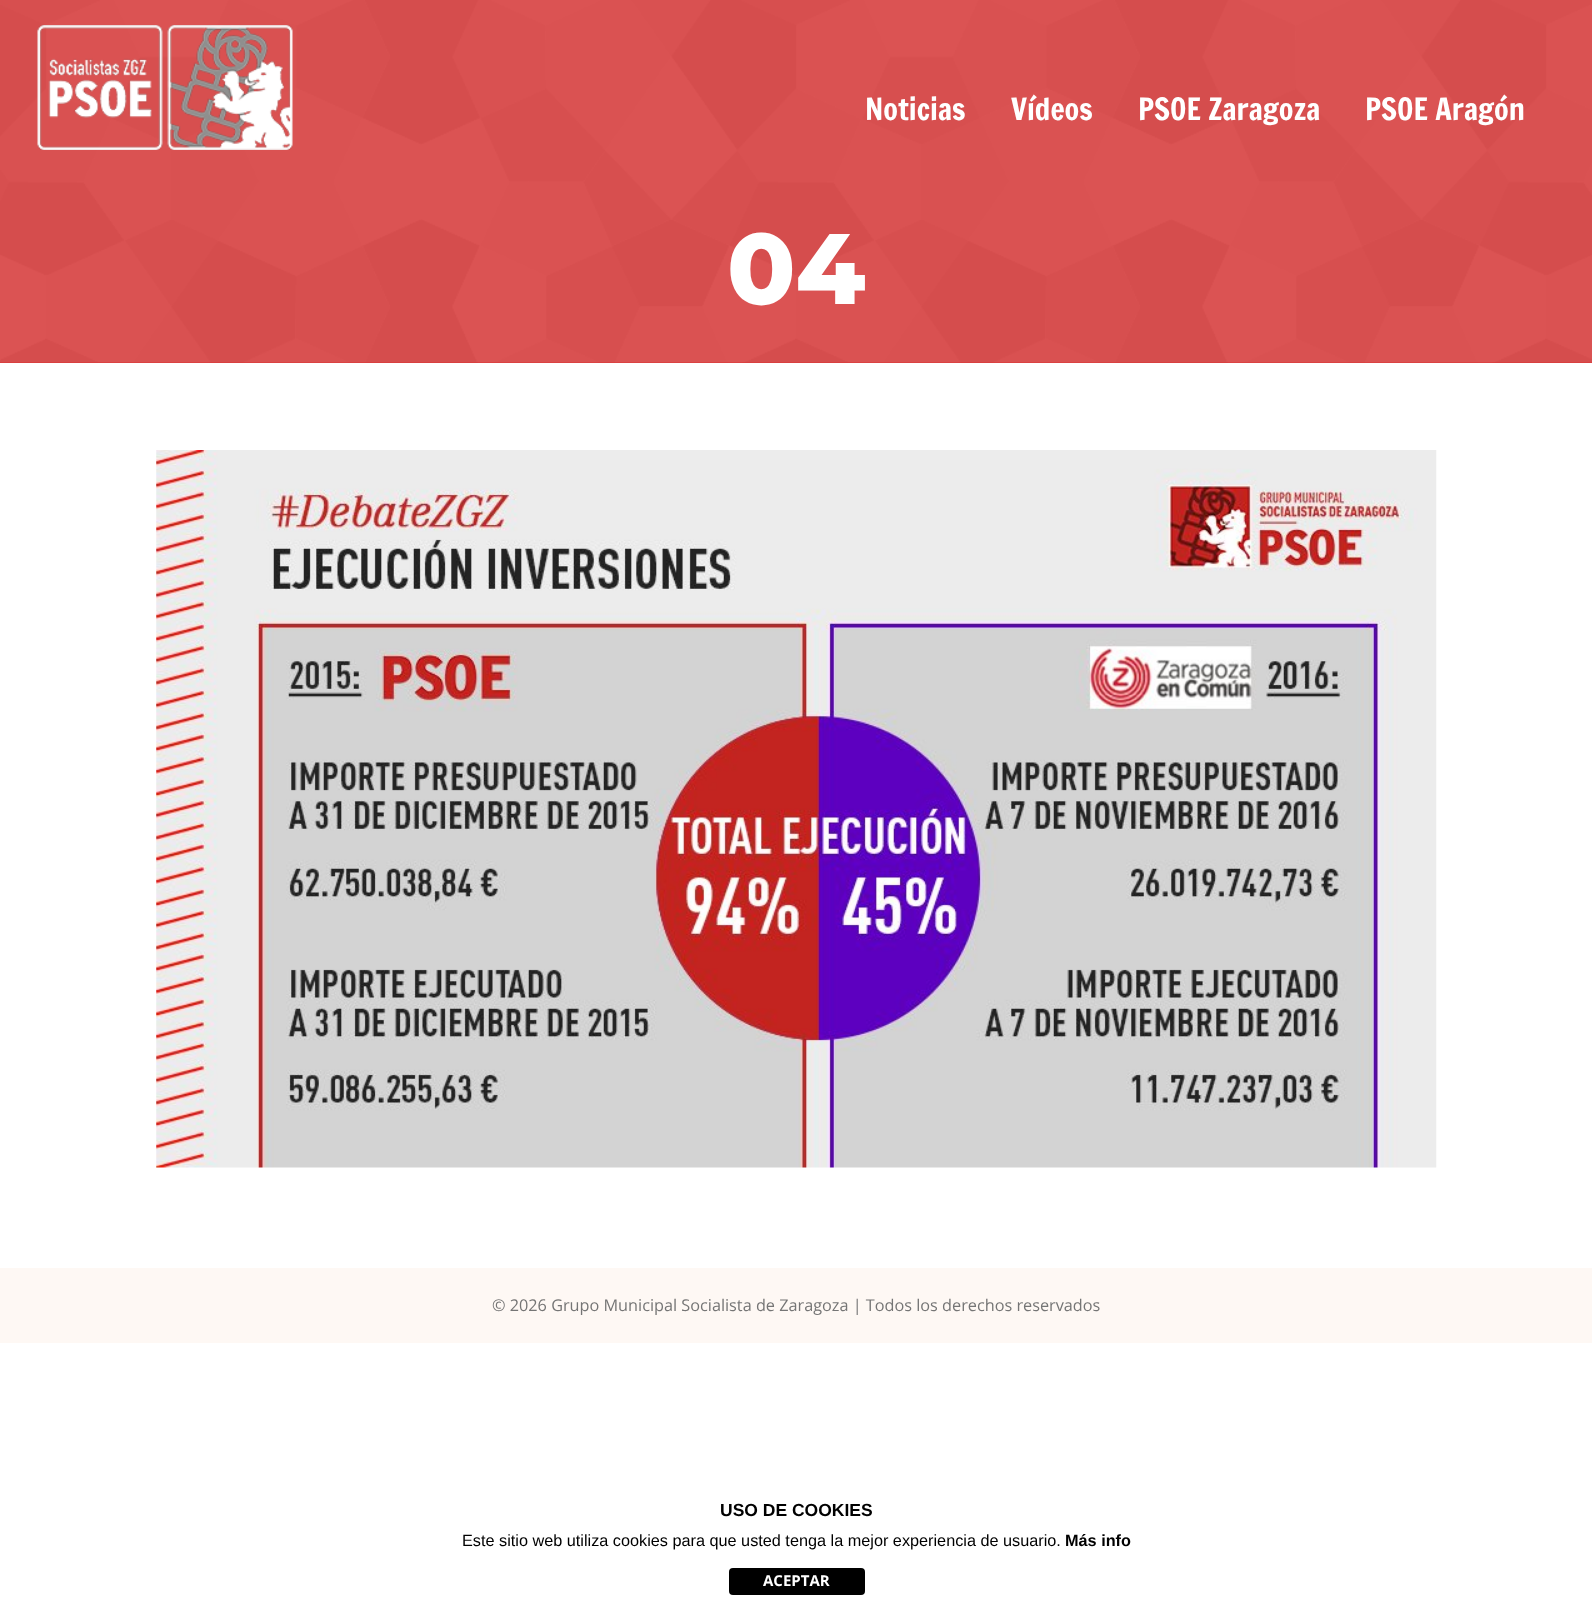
<svg xmlns="http://www.w3.org/2000/svg" xmlns:xlink="http://www.w3.org/1999/xlink" width="1592" height="1607" viewBox="0 0 1592 1607">
<style>
.cls-1{font:30px Francois One;fill:#ffffff}
.cls-2{font:800 100px Montserrat;fill:#ffffff}
.cls-3{font:16.25px Open Sans;fill:#757575}
.cls-4{font:bold 17.5px Liberation Sans;fill:#000000}
.cls-5{font:16.25px Liberation Sans;fill:#000000}
.cls-6{font:bold 16.25px Liberation Sans;fill:#000000}
.cls-7{font:bold 15px Open Sans;fill:#ffffff}
</style>
<rect width="100%" height="100%" fill="#ffffff"/>
<rect fill="#dd3333" x="0" y="0" width="1592" height="363"/>
<image xlink:href="image1.png" x="0" y="0" width="1592" height="363"/>
<image xlink:href="image0.png" x="37" y="25" width="256" height="125"/>
<image xlink:href="image2.png" x="156" y="450" width="1281" height="718"/>
<rect fill="#fef8f4" x="0" y="1268" width="1592" height="75"/>
<rect fill="#000000" x="729" y="1568" width="136" height="27" rx="4"/>
<text class="cls-1" x="865" y="120">Noticias</text>
<text class="cls-1" x="1011" y="120">Vídeos</text>
<text class="cls-1" x="1138" y="120">PSOE Zaragoza</text>
<text class="cls-1" x="1365" y="120">PSOE Aragón</text>
<text class="cls-2" x="727" y="304">04</text>
<text class="cls-3" x="492" y="1311">© 2026 Grupo Municipal Socialista de Zaragoza | Todos los derechos reservados</text>
<text class="cls-4" x="720" y="1516">USO DE COOKIES</text>
<text class="cls-5" x="462" y="1546">Este sitio web utiliza cookies para que usted tenga la mejor experiencia de usuario.</text>
<text class="cls-6" x="1065" y="1546">Más info</text>
<text class="cls-7" x="763" y="1586">ACEPTAR</text>
</svg>
